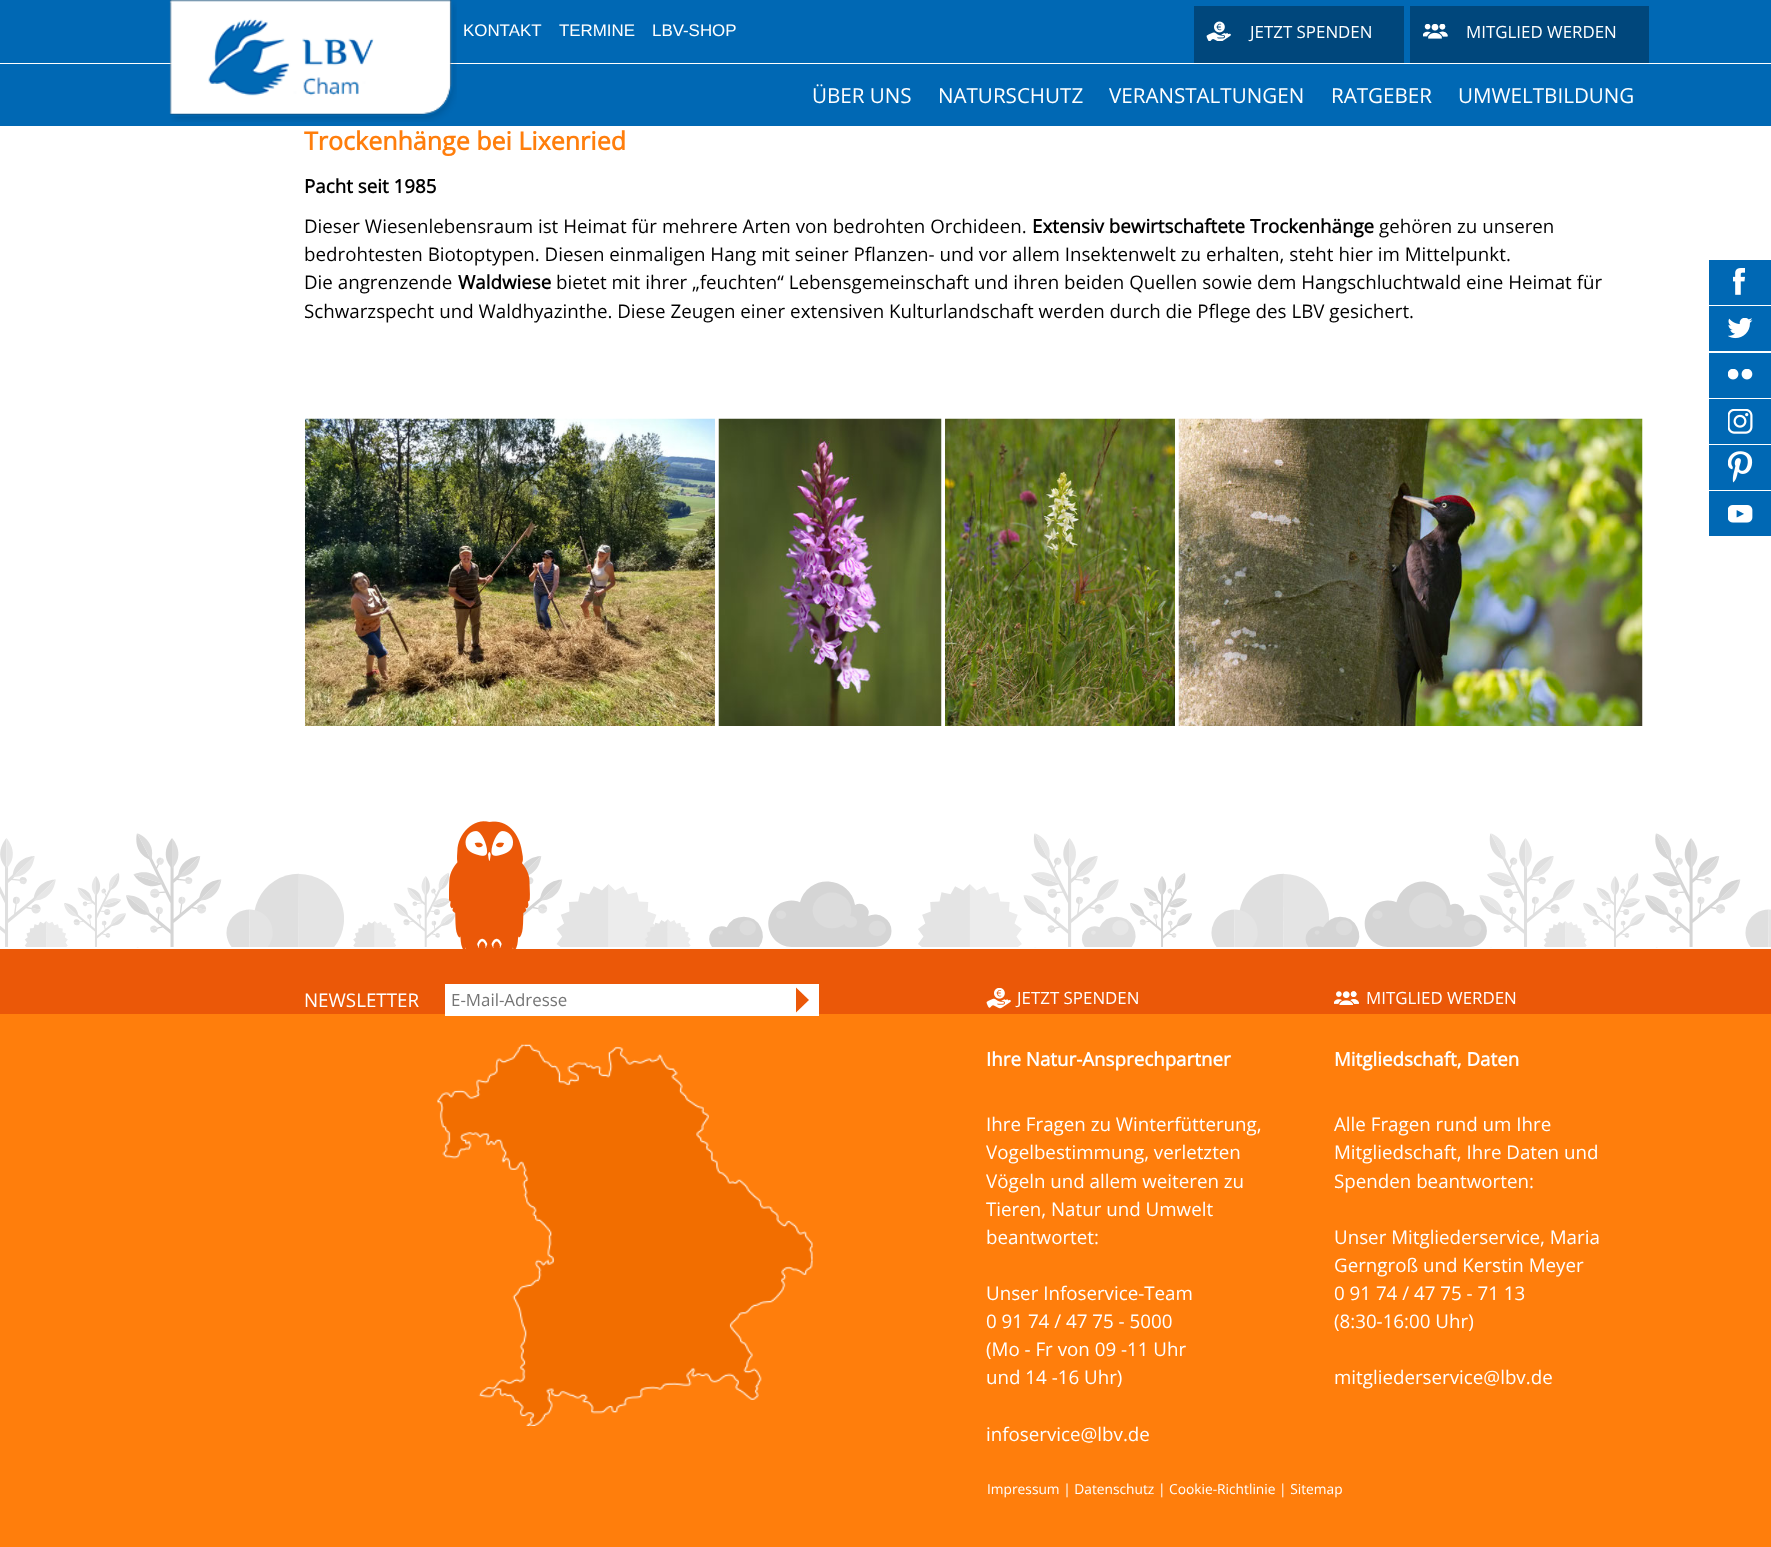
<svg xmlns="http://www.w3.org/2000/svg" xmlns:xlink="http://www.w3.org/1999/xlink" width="1771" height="1547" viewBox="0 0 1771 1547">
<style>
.cls-1{font:16.9px Liberation Sans;fill:#ffffff}
.cls-2{font:16.9px Open Sans;fill:#ffffff}
.cls-3{font:20.6px Open Sans;fill:#ffffff}
.cls-4{font:bold 25px Open Sans;fill:#ff7e0c}
.cls-5{font:bold 18.75px Open Sans;fill:#000000}
.cls-6{font:18.75px Open Sans;fill:#000000}
.cls-7{font:18.75px Open Sans;fill:#ffffff}
.cls-8{font:16.9px Open Sans;fill:#757575}
.cls-9{font:bold 18.75px Open Sans;fill:#ffffff}
.cls-10{font:13.75px Open Sans;fill:#ffffff}
</style>
<rect width="100%" height="100%" fill="#ffffff"/>
<rect fill="#0068b4" x="0" y="0" width="1771" height="63"/>
<rect fill="#0068b4" x="0" y="64" width="1771" height="62"/>
<image xlink:href="image0.png" x="169" y="0" width="288" height="122"/>
<rect fill="#00477c" x="1194" y="6" width="210" height="57"/>
<image xlink:href="image1.png" x="1206" y="21" width="25" height="20"/>
<rect fill="#00477c" x="1410" y="6" width="239" height="57"/>
<image xlink:href="image2.png" x="1423" y="24" width="25" height="15"/>
<image xlink:href="image3.png" x="305" y="418" width="410" height="308"/>
<image xlink:href="image4.png" x="718" y="418" width="224" height="308"/>
<image xlink:href="image5.png" x="945" y="418" width="230" height="308"/>
<image xlink:href="image6.png" x="1178" y="418" width="465" height="308"/>
<image xlink:href="image8.png" x="0" y="833" width="1771" height="115"/>
<image xlink:href="image7.png" x="449" y="821" width="81" height="128"/>
<rect fill="#eb5808" x="0" y="949" width="1771" height="65"/>
<rect fill="#ff7e0c" x="0" y="1014" width="1771" height="533"/>
<rect fill="#ffffff" x="445" y="984" width="374" height="32"/>
<path fill="#eb5808" d="M796 1012.5V987.5L809 1000Z"/>
<image xlink:href="image9.png" x="986" y="988" width="25" height="21"/>
<image xlink:href="image10.png" x="1334" y="991" width="25" height="14"/>
<image xlink:href="image11.png" x="437" y="1044" width="376" height="382"/>
<rect fill="#0068b4" x="1709" y="260" width="62" height="45"/>
<image xlink:href="image12.png" x="1733" y="268" width="12" height="27"/>
<rect fill="#0068b4" x="1709" y="306" width="62" height="45"/>
<image xlink:href="image13.png" x="1728" y="318" width="25" height="21"/>
<rect fill="#0068b4" x="1709" y="353" width="62" height="45"/>
<image xlink:href="image14.png" x="1728" y="369" width="25" height="11"/>
<rect fill="#0068b4" x="1709" y="399" width="62" height="45"/>
<image xlink:href="image15.png" x="1728" y="409" width="25" height="25"/>
<rect fill="#0068b4" x="1709" y="445" width="62" height="45"/>
<image xlink:href="image16.png" x="1728" y="451" width="25" height="32"/>
<rect fill="#0068b4" x="1709" y="491" width="62" height="45"/>
<image xlink:href="image17.png" x="1728" y="505" width="25" height="18"/>
<text class="cls-1" x="463" y="36">KONTAKT</text>
<text class="cls-1" x="559" y="36">TERMINE</text>
<text class="cls-1" x="652" y="36">LBV-SHOP</text>
<text class="cls-2" x="1250" y="38">JETZT SPENDEN</text>
<text class="cls-2" x="1466" y="38">MITGLIED WERDEN</text>
<text class="cls-3" x="812" y="103">ÜBER UNS</text>
<text class="cls-3" x="938" y="103">NATURSCHUTZ</text>
<text class="cls-3" x="1109" y="103">VERANSTALTUNGEN</text>
<text class="cls-3" x="1331" y="103">RATGEBER</text>
<text class="cls-3" x="1458" y="103">UMWELTBILDUNG</text>
<text class="cls-4" x="304" y="150">Trockenhänge bei Lixenried</text>
<text class="cls-5" x="304" y="193">Pacht seit 1985</text>
<text class="cls-6" x="304" y="233">Dieser Wiesenlebensraum ist Heimat für mehrere Arten von bedrohten Orchideen.</text>
<text class="cls-5" x="1032" y="233">Extensiv bewirtschaftete Trockenhänge</text>
<text class="cls-6" x="1379" y="233">gehören zu unseren</text>
<text class="cls-6"><tspan x="304" y="261">bedrohtesten Biotoptypen. Diesen einmaligen Hang mit seiner Pflanzen- und vor allem Insektenwelt zu erhalten, steht hier im Mittelpunkt.</tspan><tspan x="304" y="289">Die angrenzende</tspan></text>
<text class="cls-5" x="458" y="289">Waldwiese</text>
<text class="cls-6" x="556" y="289">bietet mit ihrer „feuchten“ Lebensgemeinschaft und ihren beiden Quellen sowie dem Hangschluchtwald eine Heimat für</text>
<text class="cls-6" x="304" y="318">Schwarzspecht und Waldhyazinthe. Diese Zeugen einer extensiven Kulturlandschaft werden durch die Pflege des LBV gesichert.</text>
<text class="cls-7" x="304" y="1007">NEWSLETTER</text>
<text class="cls-8" x="451" y="1006">E-Mail-Adresse</text>
<text class="cls-2" x="1017" y="1004">JETZT SPENDEN</text>
<text class="cls-2" x="1366" y="1004">MITGLIED WERDEN</text>
<text class="cls-9" x="986" y="1066">Ihre Natur-Ansprechpartner</text>
<text class="cls-7"><tspan x="986" y="1131">Ihre Fragen zu Winterfütterung,</tspan><tspan x="986" y="1159">Vogelbestimmung, verletzten</tspan><tspan x="986" y="1188">Vögeln und allem weiteren zu</tspan><tspan x="986" y="1216">Tieren, Natur und Umwelt</tspan><tspan x="986" y="1244">beantwortet:</tspan></text>
<text class="cls-7"><tspan x="986" y="1300">Unser Infoservice-Team</tspan><tspan x="986" y="1328">0 91 74 / 47 75 - 5000</tspan><tspan x="986" y="1356">(Mo - Fr von 09 -11 Uhr</tspan><tspan x="986" y="1384">und 14 -16 Uhr)</tspan></text>
<text class="cls-7" x="986" y="1441">infoservice@lbv.de</text>
<text class="cls-9" x="1334" y="1066">Mitgliedschaft, Daten</text>
<text class="cls-7"><tspan x="1334" y="1131">Alle Fragen rund um Ihre</tspan><tspan x="1334" y="1159">Mitgliedschaft, Ihre Daten und</tspan><tspan x="1334" y="1188">Spenden beantworten:</tspan></text>
<text class="cls-7"><tspan x="1334" y="1244">Unser Mitgliederservice, Maria</tspan><tspan x="1334" y="1272">Gerngroß und Kerstin Meyer</tspan><tspan x="1334" y="1300">0 91 74 / 47 75 - 71 13</tspan><tspan x="1334" y="1328">(8:30-16:00 Uhr)</tspan></text>
<text class="cls-7" x="1334" y="1384">mitgliederservice@lbv.de</text>
<text class="cls-10" x="987" y="1494">Impressum | Datenschutz | Cookie-Richtlinie | Sitemap</text>
</svg>
